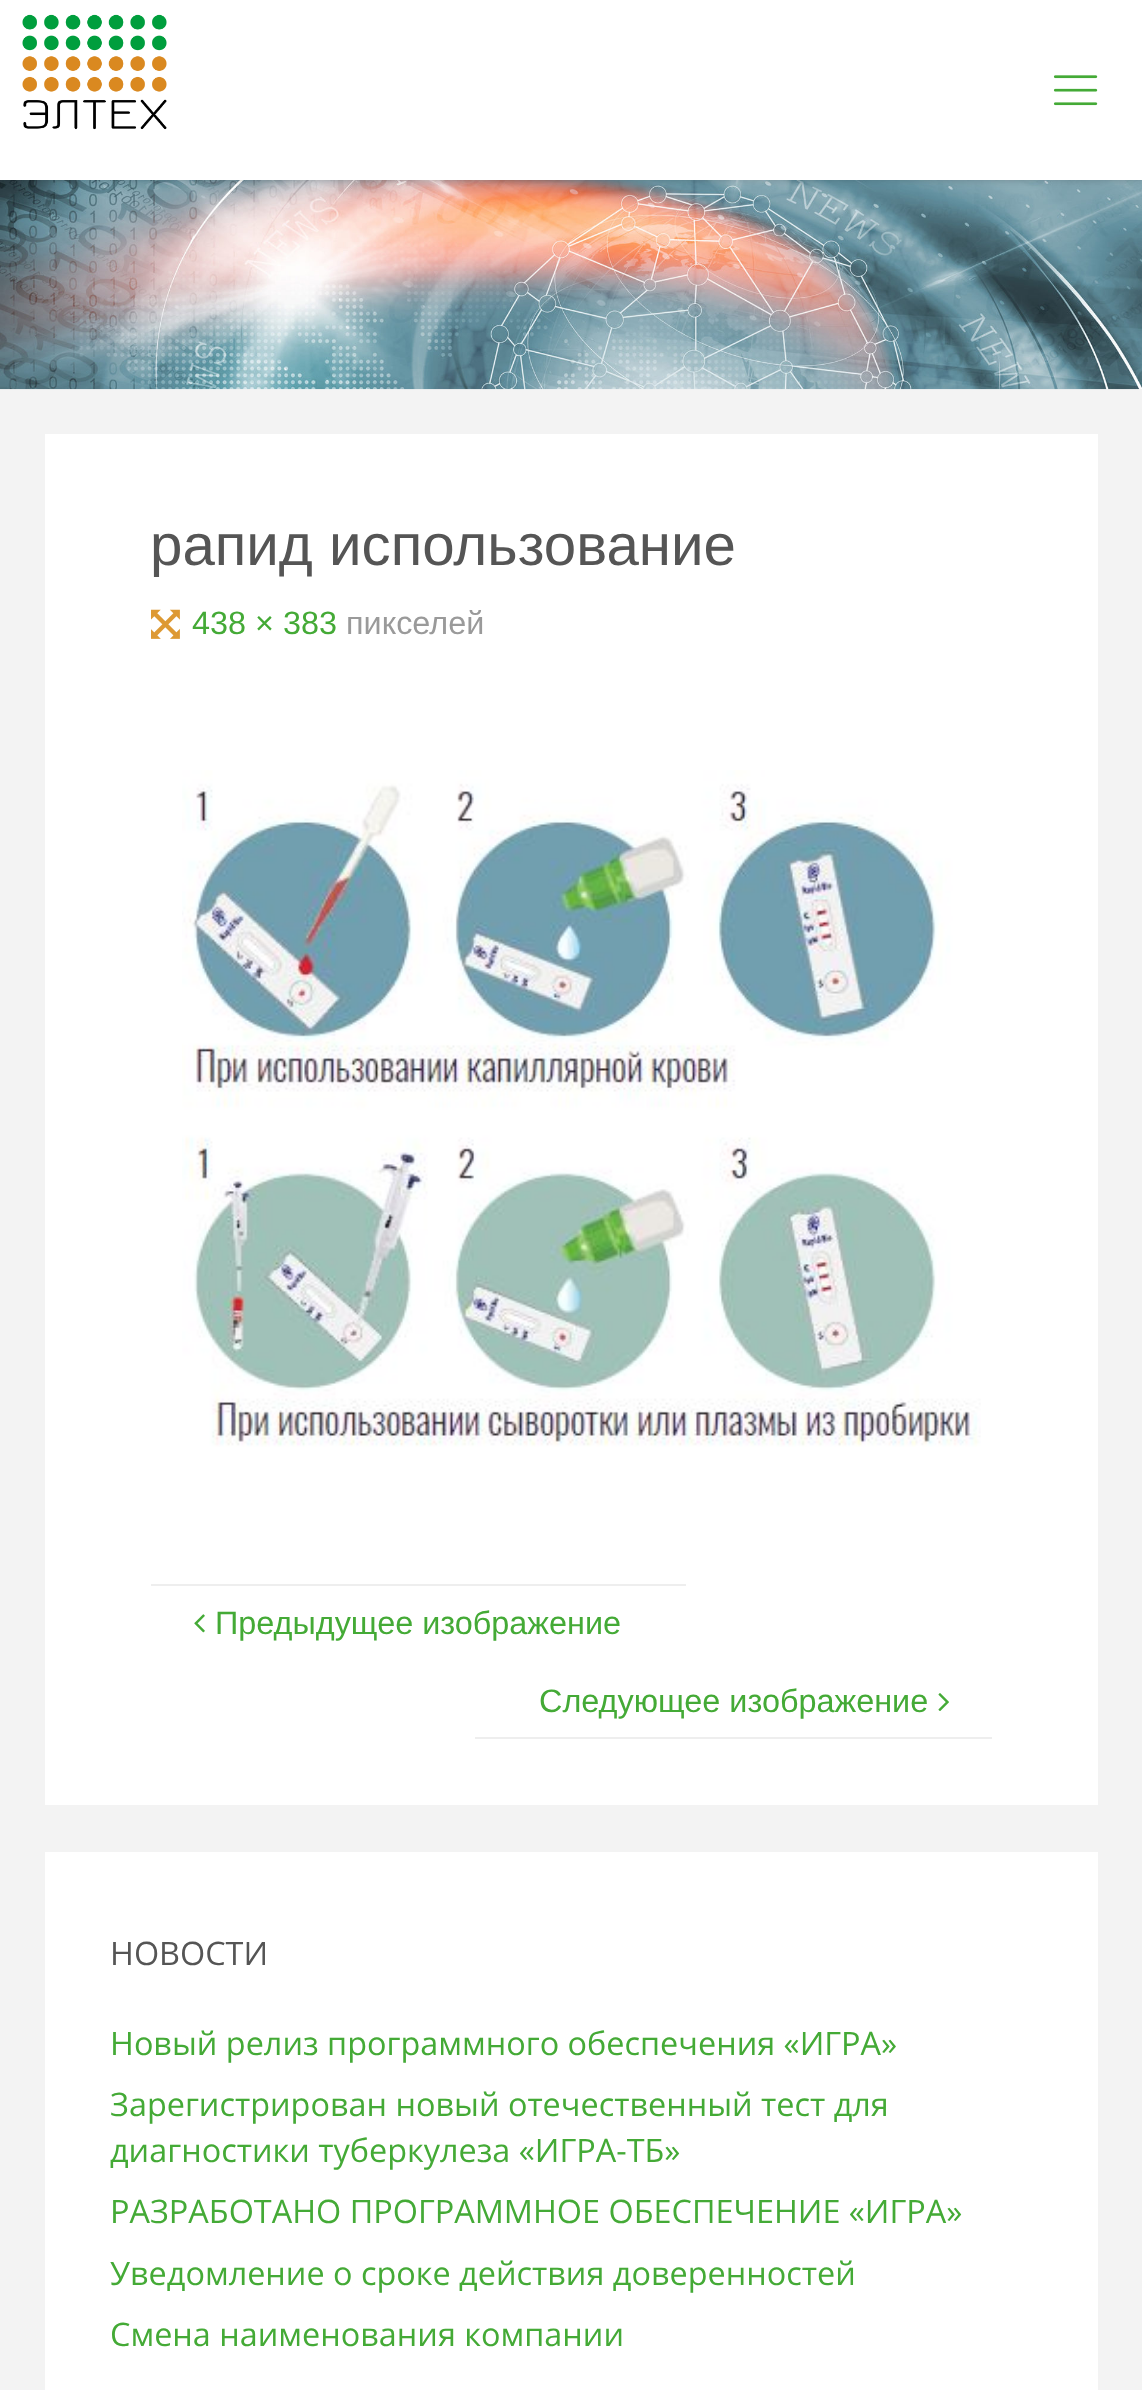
<svg xmlns="http://www.w3.org/2000/svg" xmlns:xlink="http://www.w3.org/1999/xlink" width="1142" height="2390" viewBox="0 0 1142 2390">
<style>
.cls-1{font:58.25px Liberation Sans;fill:#555555}
.cls-2{font:32.4px Liberation Sans;fill:#44aa36}
.cls-3{font:32.4px Liberation Sans;fill:#9a9a9a}
.cls-4{font:32.4px Open Sans;fill:#555555}
.cls-5{font:32.4px Open Sans;fill:#44aa36}
</style>
<rect width="100%" height="100%" fill="#f3f3f3"/>
<image xlink:href="image2.png" x="0" y="180" width="1142" height="210"/>
<rect fill="#000000" fill-opacity="0.2" filter="blur(3.5px)" x="0" y="0" width="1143" height="180"/>
<rect fill="#ffffff" x="0" y="0" width="1142" height="180"/>
<image xlink:href="image0.png" x="22" y="14" width="145" height="116"/>
<image xlink:href="image1.png" x="1053" y="75" width="45" height="31"/>
<rect fill="#ffffff" x="45" y="434" width="1053" height="1371"/>
<image xlink:href="image3.png" x="151" y="609" width="29" height="30"/>
<image xlink:href="image4.png" x="182" y="770" width="799" height="677"/>
<rect fill="#eeeeee" x="151" y="1584" width="535" height="2"/>
<image xlink:href="image5.png" x="194" y="1614" width="11" height="19"/>
<image xlink:href="image6.png" x="938" y="1693" width="11" height="18"/>
<rect fill="#eeeeee" x="475" y="1737" width="517" height="2"/>
<rect fill="#ffffff" x="45" y="1852" width="1053" height="538"/>
<text class="cls-1" x="150" y="565">рапид использование</text>
<text class="cls-2" x="192" y="634">438 × 383</text>
<text class="cls-3" x="346" y="634">пикселей</text>
<text class="cls-2" x="215" y="1634">Предыдущее изображение</text>
<text class="cls-2" x="539" y="1712">Следующее изображение</text>
<text class="cls-4" x="110" y="1965">НОВОСТИ</text>
<text class="cls-5"><tspan x="110" y="2055">Новый релиз программного обеспечения «ИГРА»</tspan><tspan x="110" y="2116">Зарегистрирован новый отечественный тест для</tspan><tspan x="110" y="2162">диагностики туберкулеза «ИГРА-ТБ»</tspan><tspan x="110" y="2223">РАЗРАБОТАНО ПРОГРАММНОЕ ОБЕСПЕЧЕНИЕ «ИГРА»</tspan><tspan x="110" y="2285">Уведомление о сроке действия доверенностей</tspan><tspan x="110" y="2346">Смена наименования компании</tspan></text>
</svg>
